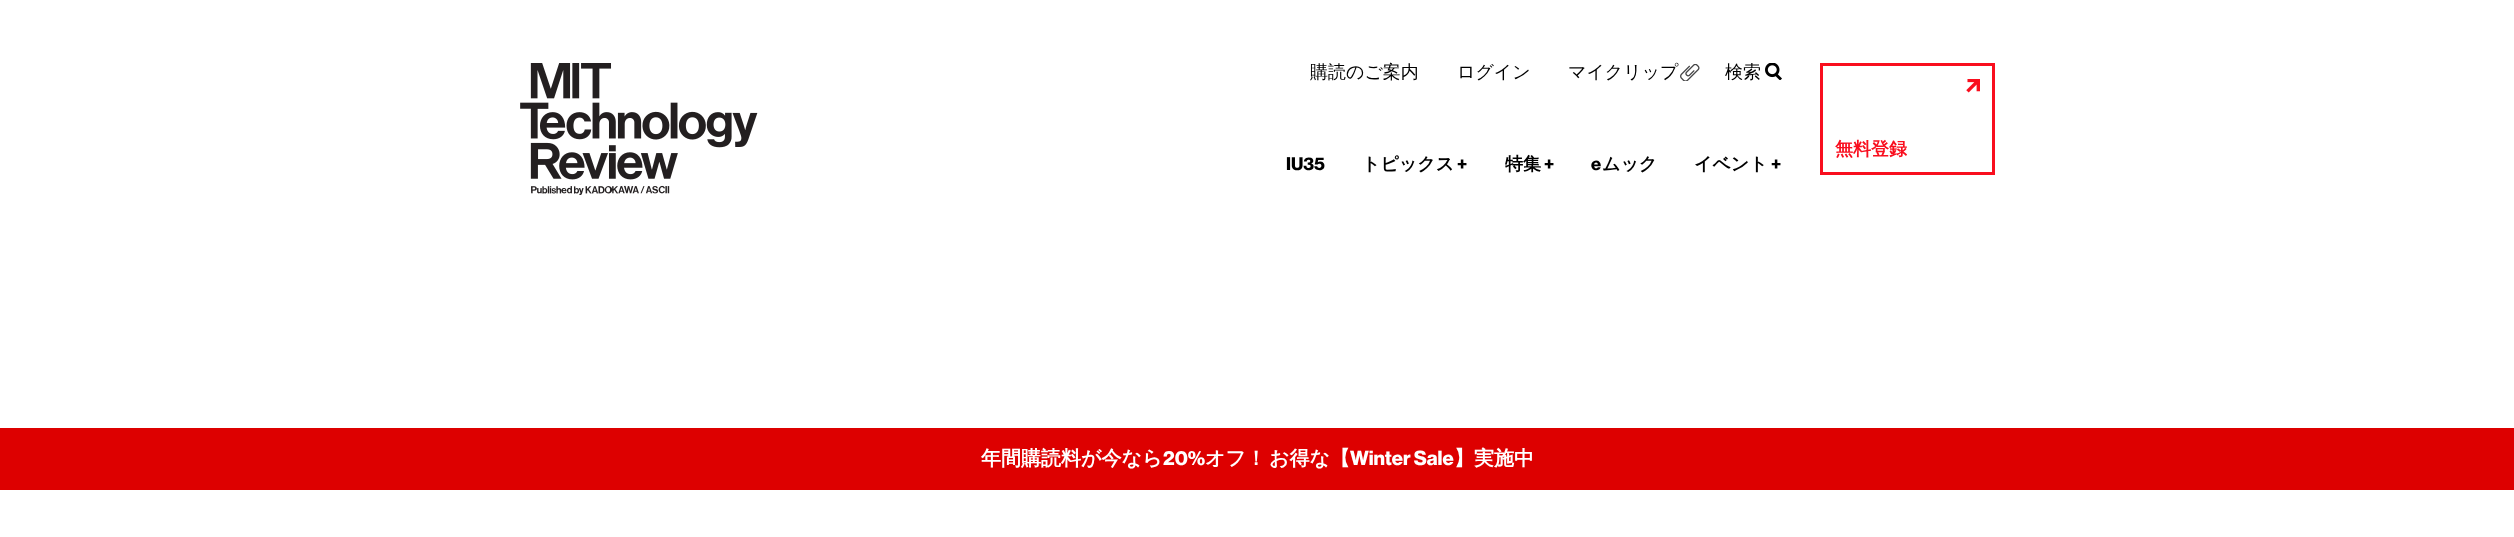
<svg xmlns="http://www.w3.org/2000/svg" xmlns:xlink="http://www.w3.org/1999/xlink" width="2514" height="537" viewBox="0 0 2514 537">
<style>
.cls-1{font:500 18px WenQuanYi Zen Hei;fill:#000000}
.cls-2{font:bold 18px WenQuanYi Zen Hei;fill:#f90e1e}
.cls-3{font:bold 18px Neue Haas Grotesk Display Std;fill:#000000}
.cls-4{font:bold 18px WenQuanYi Zen Hei;fill:#000000}
.cls-5{font:bold 20px WenQuanYi Zen Hei;fill:#ffffff}
.cls-6{font:bold 20px Neue Haas Grotesk Display Std;fill:#ffffff}
</style>
<rect width="100%" height="100%" fill="#ffffff"/>
<image xlink:href="image0.png" x="520" y="63" width="238" height="132"/>
<image xlink:href="image1.png" x="1680" y="64" width="20" height="17"/>
<image xlink:href="image2.png" x="1765" y="63" width="17" height="17"/>
<image xlink:href="image3.png" x="1966" y="79" width="14" height="14"/>
<rect fill="none" stroke="#f90e1e" stroke-width="3" x="1821.5" y="64.5" width="172" height="109"/>
<rect fill="#dd0000" x="0" y="428" width="2514" height="62"/>
<text class="cls-1" x="1310" y="78">購読のご案内</text>
<text class="cls-1" x="1457" y="78">ログイン</text>
<text class="cls-1" x="1568" y="78">マイクリップ</text>
<text class="cls-1" x="1725" y="78">検索</text>
<text class="cls-2" x="1835" y="155">無料登録</text>
<text class="cls-3" x="1286" y="170">IU35</text>
<text class="cls-4" x="1362" y="170">トピックス</text>
<text class="cls-3" x="1457" y="170">+</text>
<text class="cls-4" x="1505" y="170">特集</text>
<text class="cls-3" x="1544" y="170">+</text>
<text class="cls-3" x="1591" y="170">e</text>
<text class="cls-4" x="1602" y="170">ムック</text>
<text class="cls-4" x="1694" y="170">イベント</text>
<text class="cls-3" x="1771" y="170">+</text>
<text class="cls-5" x="981" y="465">年間購読料が今なら</text>
<text class="cls-6" x="1163" y="465">20%</text>
<text class="cls-5" x="1205" y="465">オフ！</text>
<text class="cls-5" x="1269" y="465">お得な【</text>
<text class="cls-6" x="1350" y="465">Winter Sale</text>
<text class="cls-5" x="1454" y="465">】実施中</text>
</svg>
